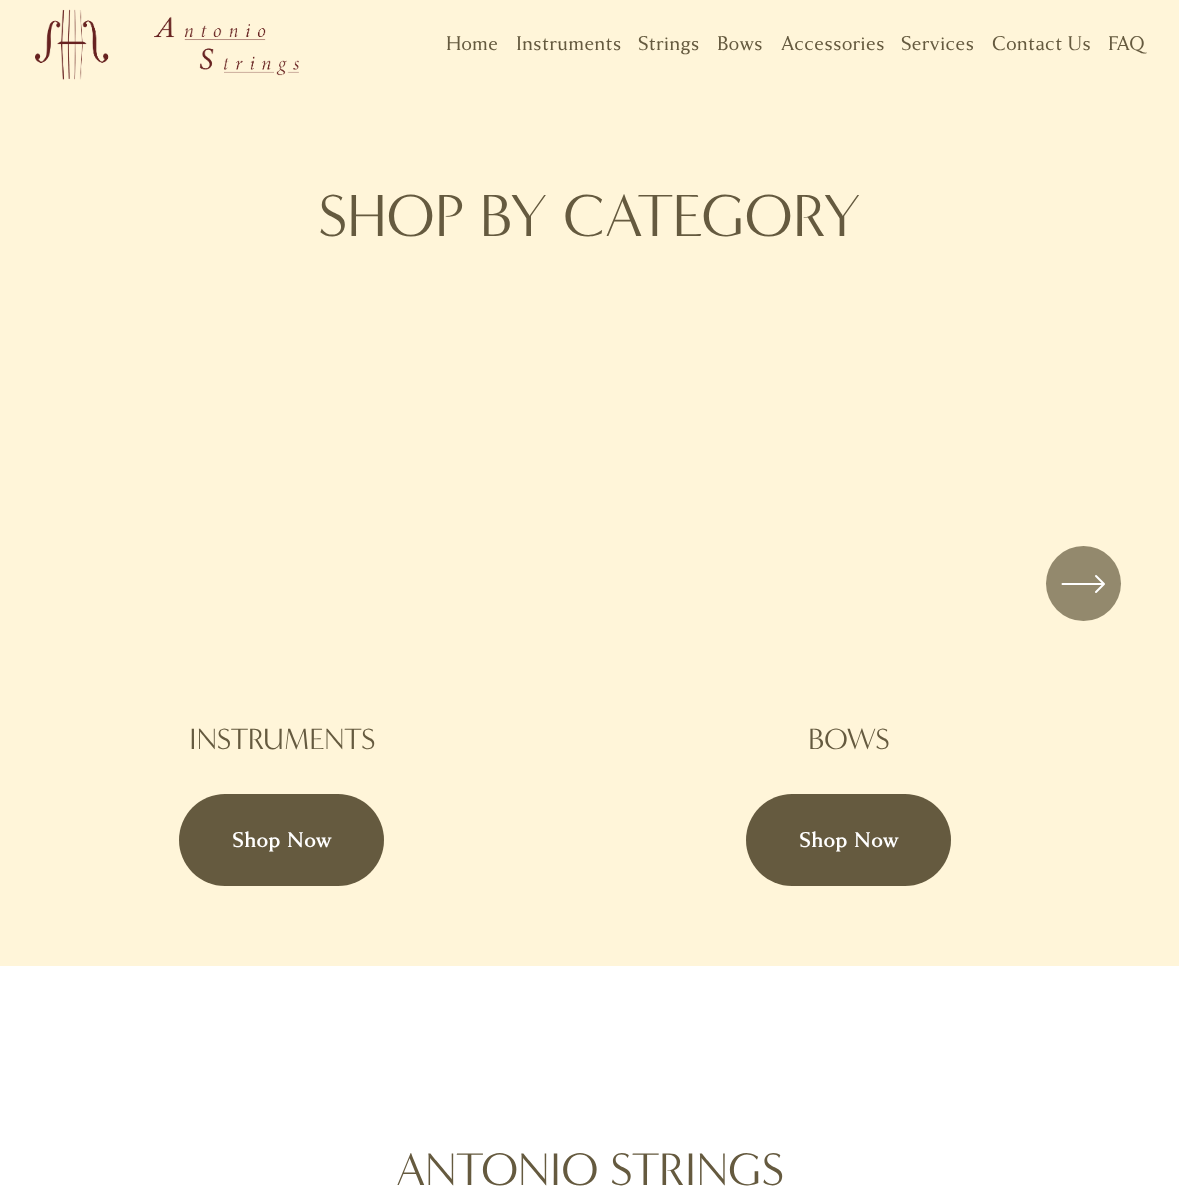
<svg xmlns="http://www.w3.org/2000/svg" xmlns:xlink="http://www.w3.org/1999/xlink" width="1179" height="1202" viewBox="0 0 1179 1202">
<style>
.cls-1{font:21.5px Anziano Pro;fill:#655a3f}
.cls-2{font:61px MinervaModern;fill:#655a3f}
.cls-3{font:30px MinervaModern;fill:#655a3f}
.cls-4{font:bold 23px Anziano Pro;fill:#ffffff}
.cls-5{font:47px MinervaModern;fill:#655a3f}
</style>
<rect width="100%" height="100%" fill="#ffffff"/>
<rect fill="#fff5d9" x="0" y="0" width="1179" height="966"/>
<image xlink:href="image0.png" x="35" y="9" width="264" height="71"/>
<circle fill="#93896d" cx="1083.5" cy="583.5" r="37.5"/>
<path fill="none" stroke="#ffffff" stroke-width="2" stroke-linecap="round" stroke-linejoin="round" d="M1096 576L1104 584L1096 592M1062.5 584H1103"/>
<rect fill="#655a3f" x="179" y="794" width="205" height="92" rx="46"/>
<rect fill="#655a3f" x="746" y="794" width="205" height="92" rx="46"/>
<text class="cls-1" x="446" y="50">Home</text>
<text class="cls-1" x="516" y="50">Instruments</text>
<text class="cls-1" x="638" y="50">Strings</text>
<text class="cls-1" x="717" y="50">Bows</text>
<text class="cls-1" x="781" y="50">Accessories</text>
<text class="cls-1" x="901" y="50">Services</text>
<text class="cls-1" x="992" y="50">Contact Us</text>
<text class="cls-1" x="1108" y="50">FAQ</text>
<text class="cls-2" x="318" y="236">SHOP BY CATEGORY</text>
<text class="cls-3" x="189" y="749">INSTRUMENTS</text>
<text class="cls-4" x="232" y="847">Shop Now</text>
<text class="cls-3" x="808" y="749">BOWS</text>
<text class="cls-4" x="799" y="847">Shop Now</text>
<text class="cls-5" x="396" y="1185">ANTONIO STRINGS</text>
</svg>
